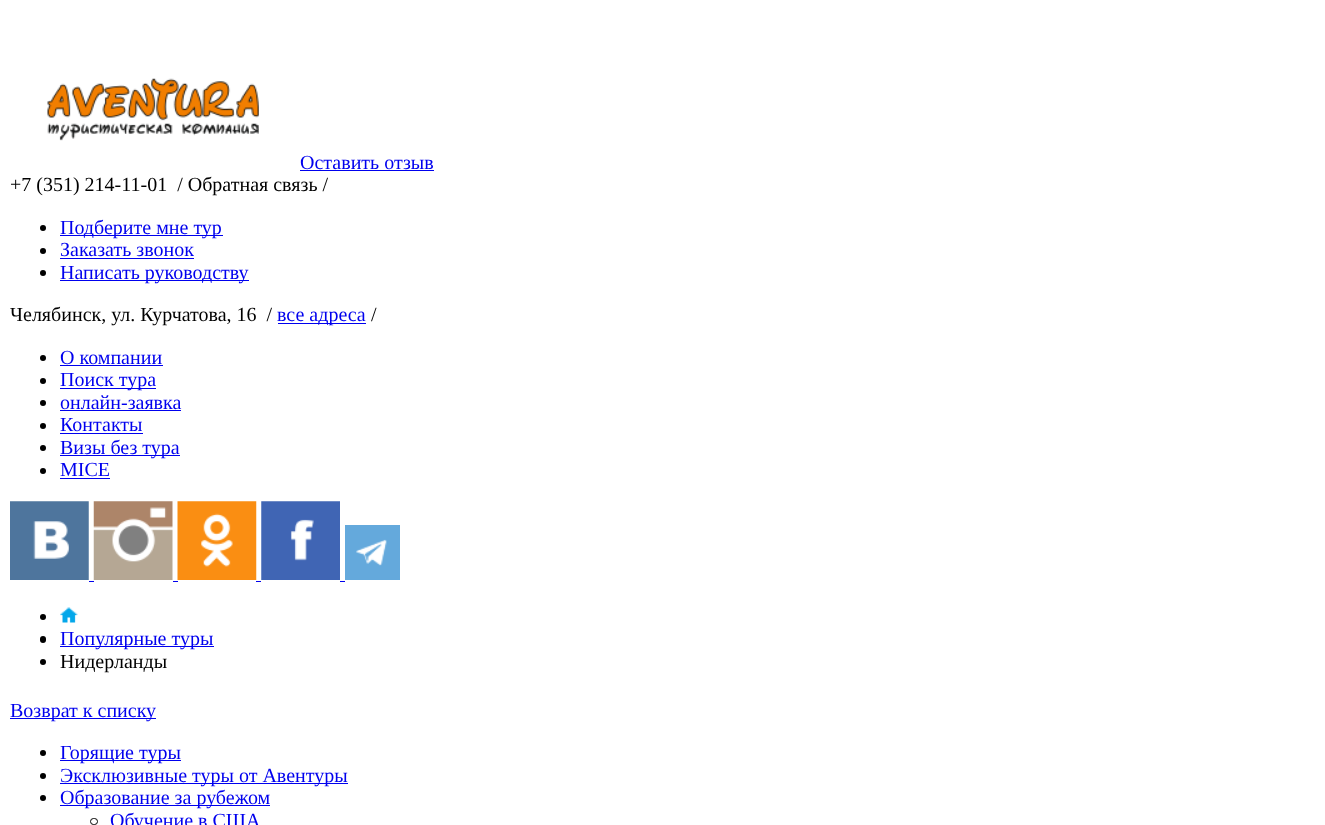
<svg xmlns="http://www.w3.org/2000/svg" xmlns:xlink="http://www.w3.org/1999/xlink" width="1325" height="825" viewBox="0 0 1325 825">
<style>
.cls-1{font:20px Liberation Serif;fill:#0000ee}
.cls-2{font:20px Liberation Serif;fill:#000000}
</style>
<rect width="100%" height="100%" fill="#ffffff"/>
<image xlink:href="image0.png" x="47" y="78" width="212" height="63"/>
<rect fill="#0000ee" x="300" y="170" width="134" height="1"/>
<circle fill="#000000" cx="43" cy="228" r="3"/>
<rect fill="#0000ee" x="60" y="235" width="163" height="1"/>
<circle fill="#000000" cx="43" cy="251" r="3"/>
<rect fill="#0000ee" x="60" y="258" width="134" height="1"/>
<circle fill="#000000" cx="43" cy="273" r="3"/>
<rect fill="#0000ee" x="60" y="280" width="189" height="1"/>
<rect fill="#0000ee" x="278" y="323" width="88" height="1"/>
<circle fill="#000000" cx="43" cy="358" r="3"/>
<rect fill="#0000ee" x="60" y="365" width="103" height="1"/>
<circle fill="#000000" cx="43" cy="381" r="3"/>
<rect fill="#0000ee" x="60" y="388" width="96" height="1"/>
<circle fill="#000000" cx="43" cy="403" r="3"/>
<rect fill="#0000ee" x="60" y="410" width="121" height="1"/>
<circle fill="#000000" cx="43" cy="426" r="3"/>
<rect fill="#0000ee" x="60" y="433" width="83" height="1"/>
<circle fill="#000000" cx="43" cy="448" r="3"/>
<rect fill="#0000ee" x="60" y="455" width="120" height="1"/>
<circle fill="#000000" cx="43" cy="471" r="3"/>
<rect fill="#0000ee" x="60" y="478" width="50" height="1"/>
<image xlink:href="image1.png" x="10" y="501" width="79" height="79"/>
<image xlink:href="image2.png" x="93" y="501" width="80" height="79"/>
<image xlink:href="image3.png" x="177" y="501" width="80" height="79"/>
<image xlink:href="image4.png" x="261" y="501" width="79" height="79"/>
<image xlink:href="image5.png" x="345" y="525" width="55" height="55"/>
<rect fill="#0000ee" x="89" y="581" width="5" height="1"/>
<rect fill="#0000ee" x="173" y="581" width="5" height="1"/>
<rect fill="#0000ee" x="256" y="581" width="5" height="1"/>
<rect fill="#0000ee" x="340" y="581" width="5" height="1"/>
<circle fill="#000000" cx="43" cy="617" r="3"/>
<image xlink:href="image6.png" x="60" y="607" width="18" height="16"/>
<rect fill="#000000" x="40" y="636" width="6" height="7" rx="3"/>
<rect fill="#0000ee" x="60" y="646" width="154" height="1"/>
<circle fill="#000000" cx="43" cy="662" r="3"/>
<rect fill="#0000ee" x="10" y="718" width="146" height="1"/>
<circle fill="#000000" cx="43" cy="753" r="3"/>
<rect fill="#0000ee" x="60" y="760" width="121" height="1"/>
<circle fill="#000000" cx="43" cy="776" r="3"/>
<rect fill="#0000ee" x="60" y="783" width="288" height="1"/>
<circle fill="#000000" cx="43" cy="798" r="3"/>
<rect fill="#0000ee" x="60" y="805" width="210" height="1"/>
<rect fill="none" stroke="#000000" x="90.5" y="818.5" width="7" height="6" rx="3"/>
<text class="cls-1" x="300" y="169">Оставить отзыв</text>
<text class="cls-2" xml:space="preserve" x="10" y="191">+7 (351) 214-11-01  / Обратная связь /</text>
<text class="cls-1"><tspan x="60" y="234">Подберите мне тур</tspan><tspan x="60" y="256">Заказать звонок</tspan><tspan x="60" y="279">Написать руководству</tspan></text>
<text class="cls-2" xml:space="preserve" x="10" y="321">Челябинск, ул. Курчатова, 16  /</text>
<text class="cls-1" x="277" y="321">все адреса</text>
<text class="cls-2" x="371" y="321">/</text>
<text class="cls-1"><tspan x="60" y="364">О компании</tspan><tspan x="60" y="386">Поиск тура</tspan><tspan x="60" y="409">онлайн-заявка</tspan><tspan x="60" y="431">Контакты</tspan><tspan x="60" y="454">Визы без тура</tspan><tspan x="60" y="476">MICE</tspan></text>
<text class="cls-1" x="60" y="645">Популярные туры</text>
<text class="cls-2" x="60" y="668">Нидерланды</text>
<text class="cls-1" x="10" y="717">Возврат к списку</text>
<text class="cls-1"><tspan x="60" y="759">Горящие туры</tspan><tspan x="60" y="782">Эксклюзивные туры от Авентуры</tspan><tspan x="60" y="804">Образование за рубежом</tspan></text>
<text class="cls-1" x="110" y="827">Обучение в США</text>
</svg>
